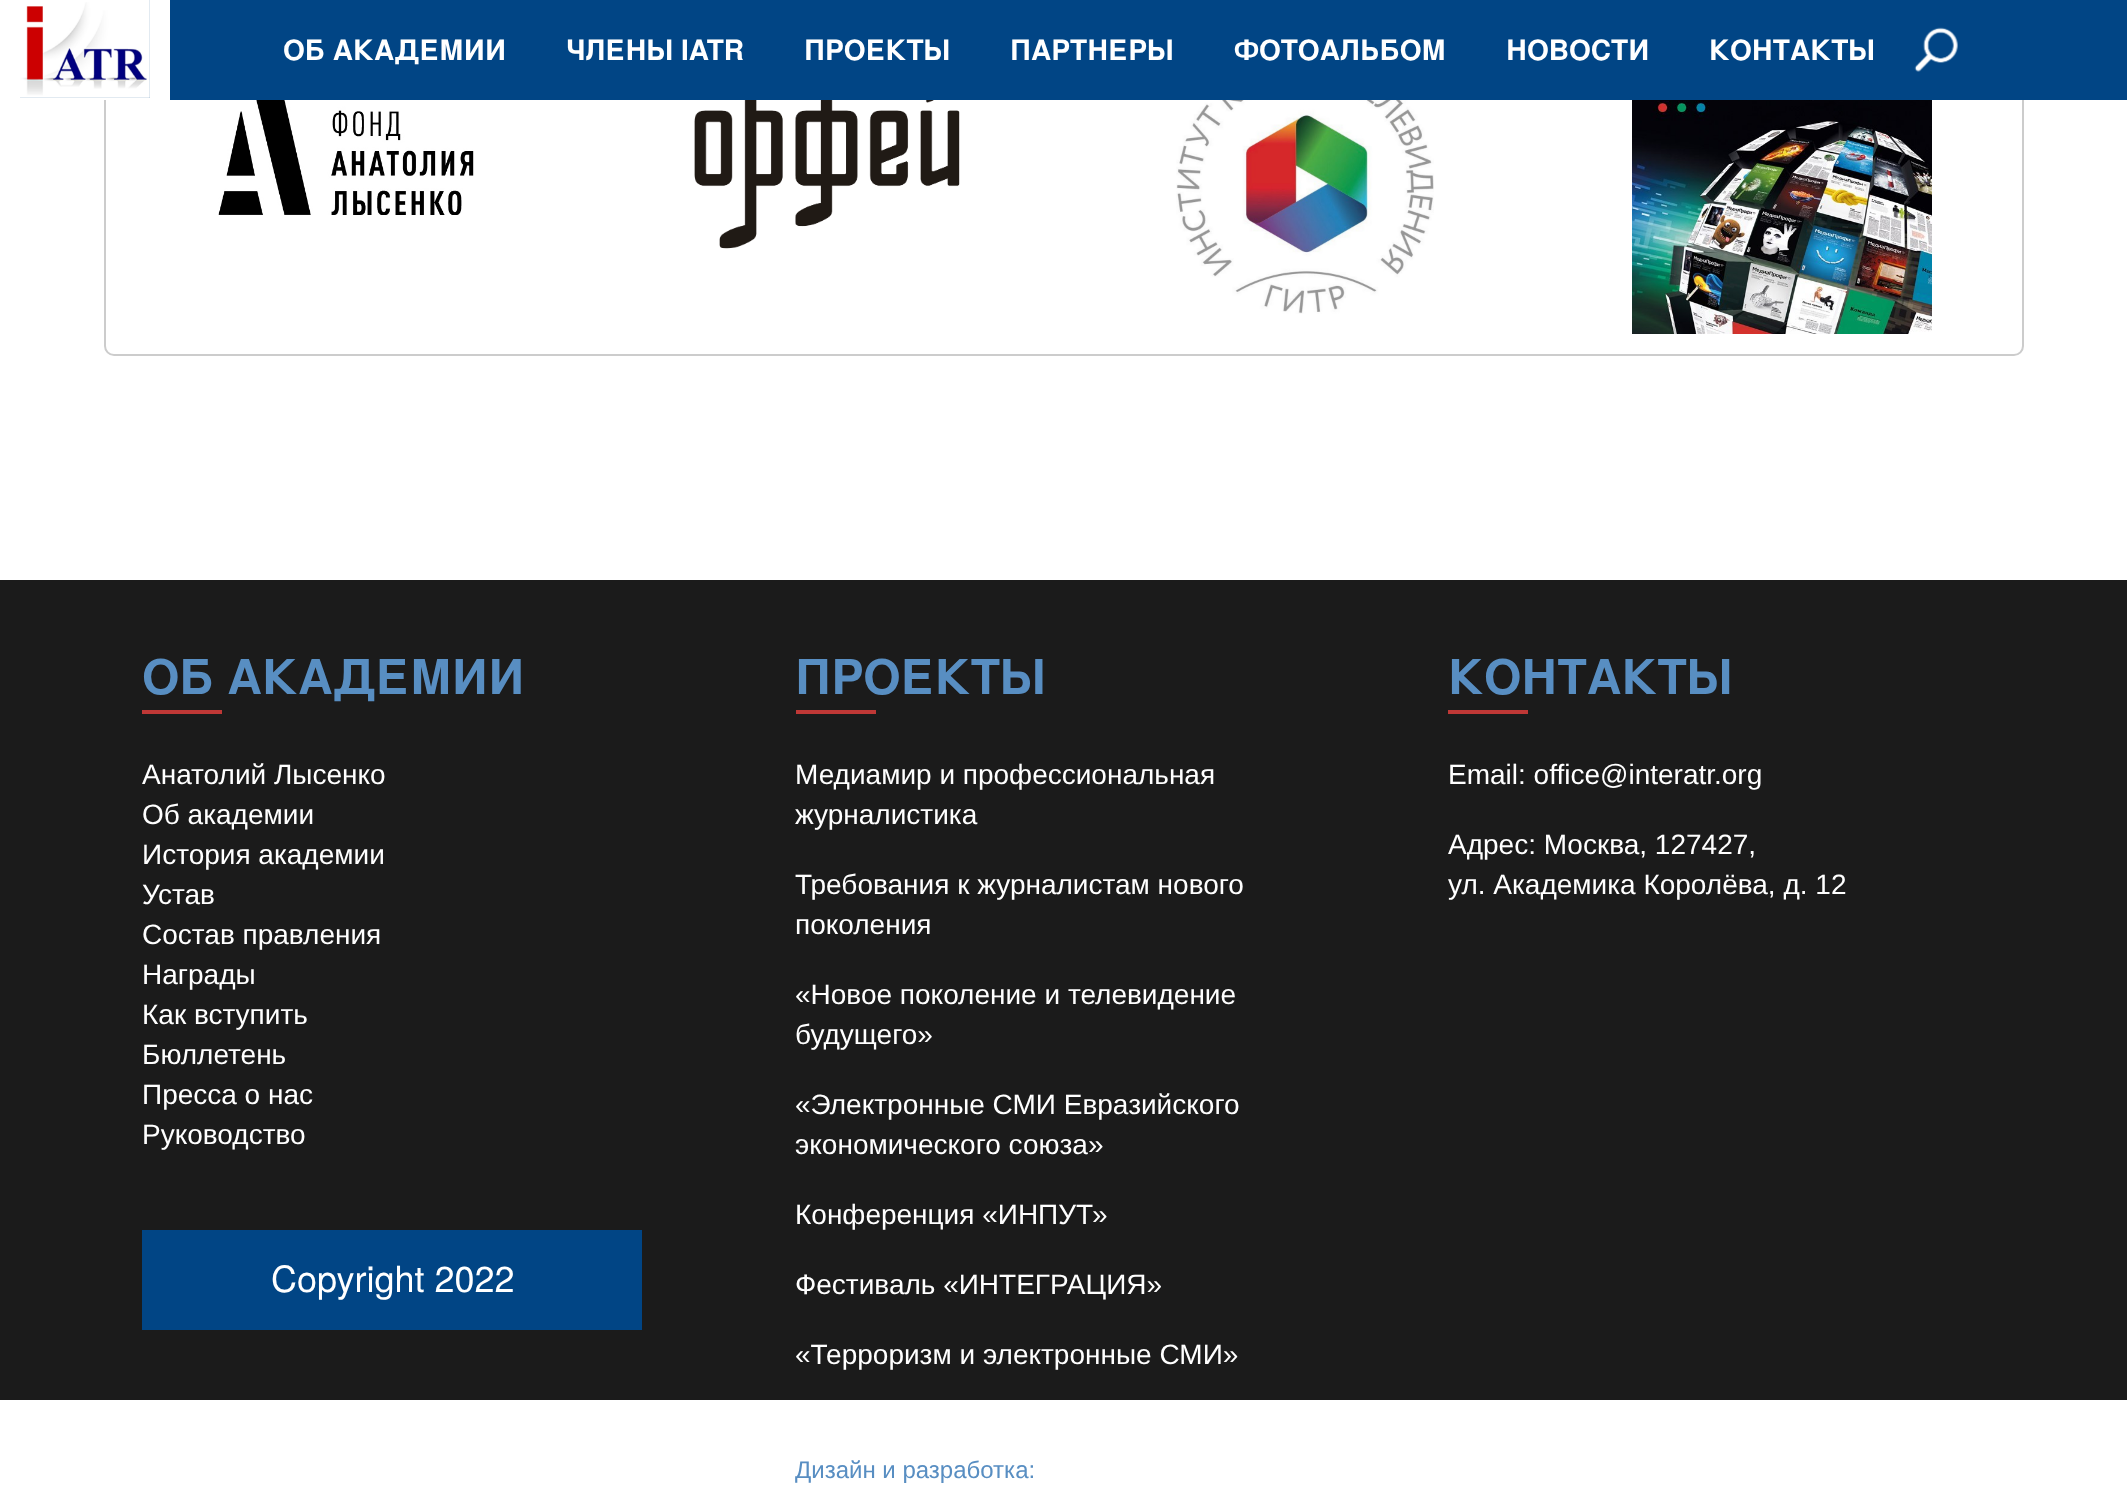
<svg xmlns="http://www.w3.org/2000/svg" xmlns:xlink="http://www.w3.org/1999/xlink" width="2127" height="1488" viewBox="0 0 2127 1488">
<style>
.cls-1{font:bold 28px TeX Gyre Heros;fill:#ffffff}
.cls-2{font:bold 48px TeX Gyre Heros;fill:#588ec2}
.cls-3{font:28px Liberation Sans;fill:#ffffff}
.cls-4{font:36px TeX Gyre Heros;fill:#ffffff}
.cls-5{font:24px Liberation Sans;fill:#588ec2}
</style>
<rect width="100%" height="100%" fill="#ffffff"/>
<rect fill="none" stroke="#cccccc" stroke-width="2" x="105" y="13" width="1918" height="342" rx="9"/>
<image xlink:href="image0.png" x="218" y="100" width="256" height="115"/>
<image xlink:href="image1.png" x="694" y="100" width="266" height="149"/>
<image xlink:href="image2.png" x="1176" y="100" width="258" height="214"/>
<image xlink:href="image3.png" x="1632" y="100" width="300" height="234"/>
<rect fill="#014585" x="20" y="0" width="2107" height="100"/>
<rect fill="#ffffff" x="150" y="0" width="20" height="98"/>
<rect fill="#ffffff" x="20" y="98" width="150" height="2"/>
<image xlink:href="image4.png" x="20" y="0" width="130" height="98"/>
<image xlink:href="image5.png" x="1914" y="27" width="44" height="45"/>
<rect fill="#1b1b1b" x="0" y="580" width="2127" height="820"/>
<rect fill="#bf3836" x="142" y="710" width="80" height="4"/>
<rect fill="#014585" x="142" y="1230" width="500" height="100"/>
<rect fill="#bf3836" x="796" y="710" width="80" height="4"/>
<rect fill="#bf3836" x="1448" y="710" width="80" height="4"/>
<text class="cls-1" x="283" y="60">ОБ АКАДЕМИИ</text>
<text class="cls-1" x="566" y="60">ЧЛЕНЫ IATR</text>
<text class="cls-1" x="804" y="60">ПРОЕКТЫ</text>
<text class="cls-1" x="1010" y="60">ПАРТНЕРЫ</text>
<text class="cls-1" x="1234" y="60">ФОТОАЛЬБОМ</text>
<text class="cls-1" x="1506" y="60">НОВОСТИ</text>
<text class="cls-1" x="1709" y="60">КОНТАКТЫ</text>
<text class="cls-2" x="142" y="694">ОБ АКАДЕМИИ</text>
<text class="cls-3"><tspan x="142" y="784">Анатолий Лысенко</tspan><tspan x="142" y="824">Об академии</tspan><tspan x="142" y="864">История академии</tspan><tspan x="142" y="904">Устав</tspan><tspan x="142" y="944">Состав правления</tspan><tspan x="142" y="984">Награды</tspan><tspan x="142" y="1024">Как вступить</tspan><tspan x="142" y="1064">Бюллетень</tspan><tspan x="142" y="1104">Пресса о нас</tspan><tspan x="142" y="1144">Руководство</tspan></text>
<text class="cls-4" x="271" y="1292">Copyright 2022</text>
<text class="cls-2" x="795" y="694">ПРОЕКТЫ</text>
<text class="cls-3"><tspan x="795" y="784">Медиамир и профессиональная</tspan><tspan x="795" y="824">журналистика</tspan></text>
<text class="cls-3"><tspan x="795" y="894">Требования к журналистам нового</tspan><tspan x="795" y="934">поколения</tspan></text>
<text class="cls-3"><tspan x="795" y="1004">«Новое поколение и телевидение</tspan><tspan x="795" y="1044">будущего»</tspan></text>
<text class="cls-3"><tspan x="795" y="1114">«Электронные СМИ Евразийского</tspan><tspan x="795" y="1154">экономического союза»</tspan></text>
<text class="cls-3" x="795" y="1224">Конференция «ИНПУТ»</text>
<text class="cls-3" x="795" y="1294">Фестиваль «ИНТЕГРАЦИЯ»</text>
<text class="cls-3" x="795" y="1364">«Терроризм и электронные СМИ»</text>
<text class="cls-5" x="795" y="1478">Дизайн и разработка:</text>
<text class="cls-2" x="1448" y="694">КОНТАКТЫ</text>
<text class="cls-3" x="1448" y="784">Email: office@interatr.org</text>
<text class="cls-3"><tspan x="1448" y="854">Адрес: Москва, 127427,</tspan><tspan x="1448" y="894">ул. Академика Королёва, д. 12</tspan></text>
</svg>
